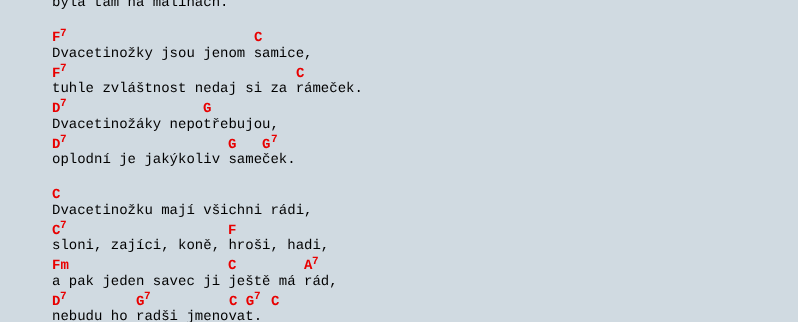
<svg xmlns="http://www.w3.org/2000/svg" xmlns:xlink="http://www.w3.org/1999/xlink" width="798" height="322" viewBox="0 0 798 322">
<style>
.cls-1{font:14px Liberation Mono;fill:#000000}
.cls-2{font:bold 14px Liberation Mono;fill:#e80000}
.cls-3{font:bold 11px Liberation Mono;letter-spacing:2px;fill:#e80000}
</style>
<rect width="100%" height="100%" fill="#d0dae1"/>
<text class="cls-1" x="52" y="6">byla tam na malinách.</text>
<text class="cls-2" x="52" y="41">F</text>
<text class="cls-3" x="60" y="36">7</text>
<text class="cls-2" x="254" y="41">C</text>
<text class="cls-1" x="52" y="57">Dvacetinožky jsou jenom samice,</text>
<text class="cls-2" x="52" y="77">F</text>
<text class="cls-3" x="60" y="71">7</text>
<text class="cls-2" x="296" y="77">C</text>
<text class="cls-1" x="52" y="92">tuhle zvláštnost nedaj si za rámeček.</text>
<text class="cls-2" x="52" y="112">D</text>
<text class="cls-3" x="60" y="106">7</text>
<text class="cls-2" x="203" y="112">G</text>
<text class="cls-1" x="52" y="128">Dvacetinožáky nepotřebujou,</text>
<text class="cls-2" x="52" y="148">D</text>
<text class="cls-3" x="60" y="142">7</text>
<text class="cls-2" x="228" y="148">G</text>
<text class="cls-2" x="262" y="148">G</text>
<text class="cls-3" x="271" y="142">7</text>
<text class="cls-1" x="52" y="163">oplodní je jakýkoliv sameček.</text>
<text class="cls-2" x="52" y="198">C</text>
<text class="cls-1" x="52" y="214">Dvacetinožku mají všichni rádi,</text>
<text class="cls-2" x="52" y="234">C</text>
<text class="cls-3" x="60" y="228">7</text>
<text class="cls-2" x="228" y="234">F</text>
<text class="cls-1" x="52" y="249">sloni, zajíci, koně, hroši, hadi,</text>
<text class="cls-2" x="52" y="269">Fm</text>
<text class="cls-2" x="228" y="269">C</text>
<text class="cls-2" x="304" y="269">A</text>
<text class="cls-3" x="312" y="264">7</text>
<text class="cls-1" x="52" y="285">a pak jeden savec ji ještě má rád,</text>
<text class="cls-2" x="52" y="305">D</text>
<text class="cls-3" x="60" y="299">7</text>
<text class="cls-2" x="136" y="305">G</text>
<text class="cls-3" x="144" y="299">7</text>
<text class="cls-2" x="229" y="305">C G</text>
<text class="cls-3" x="254" y="299">7</text>
<text class="cls-2" x="271" y="305">C</text>
<text class="cls-1" x="52" y="320">nebudu ho radši jmenovat.</text>
</svg>
